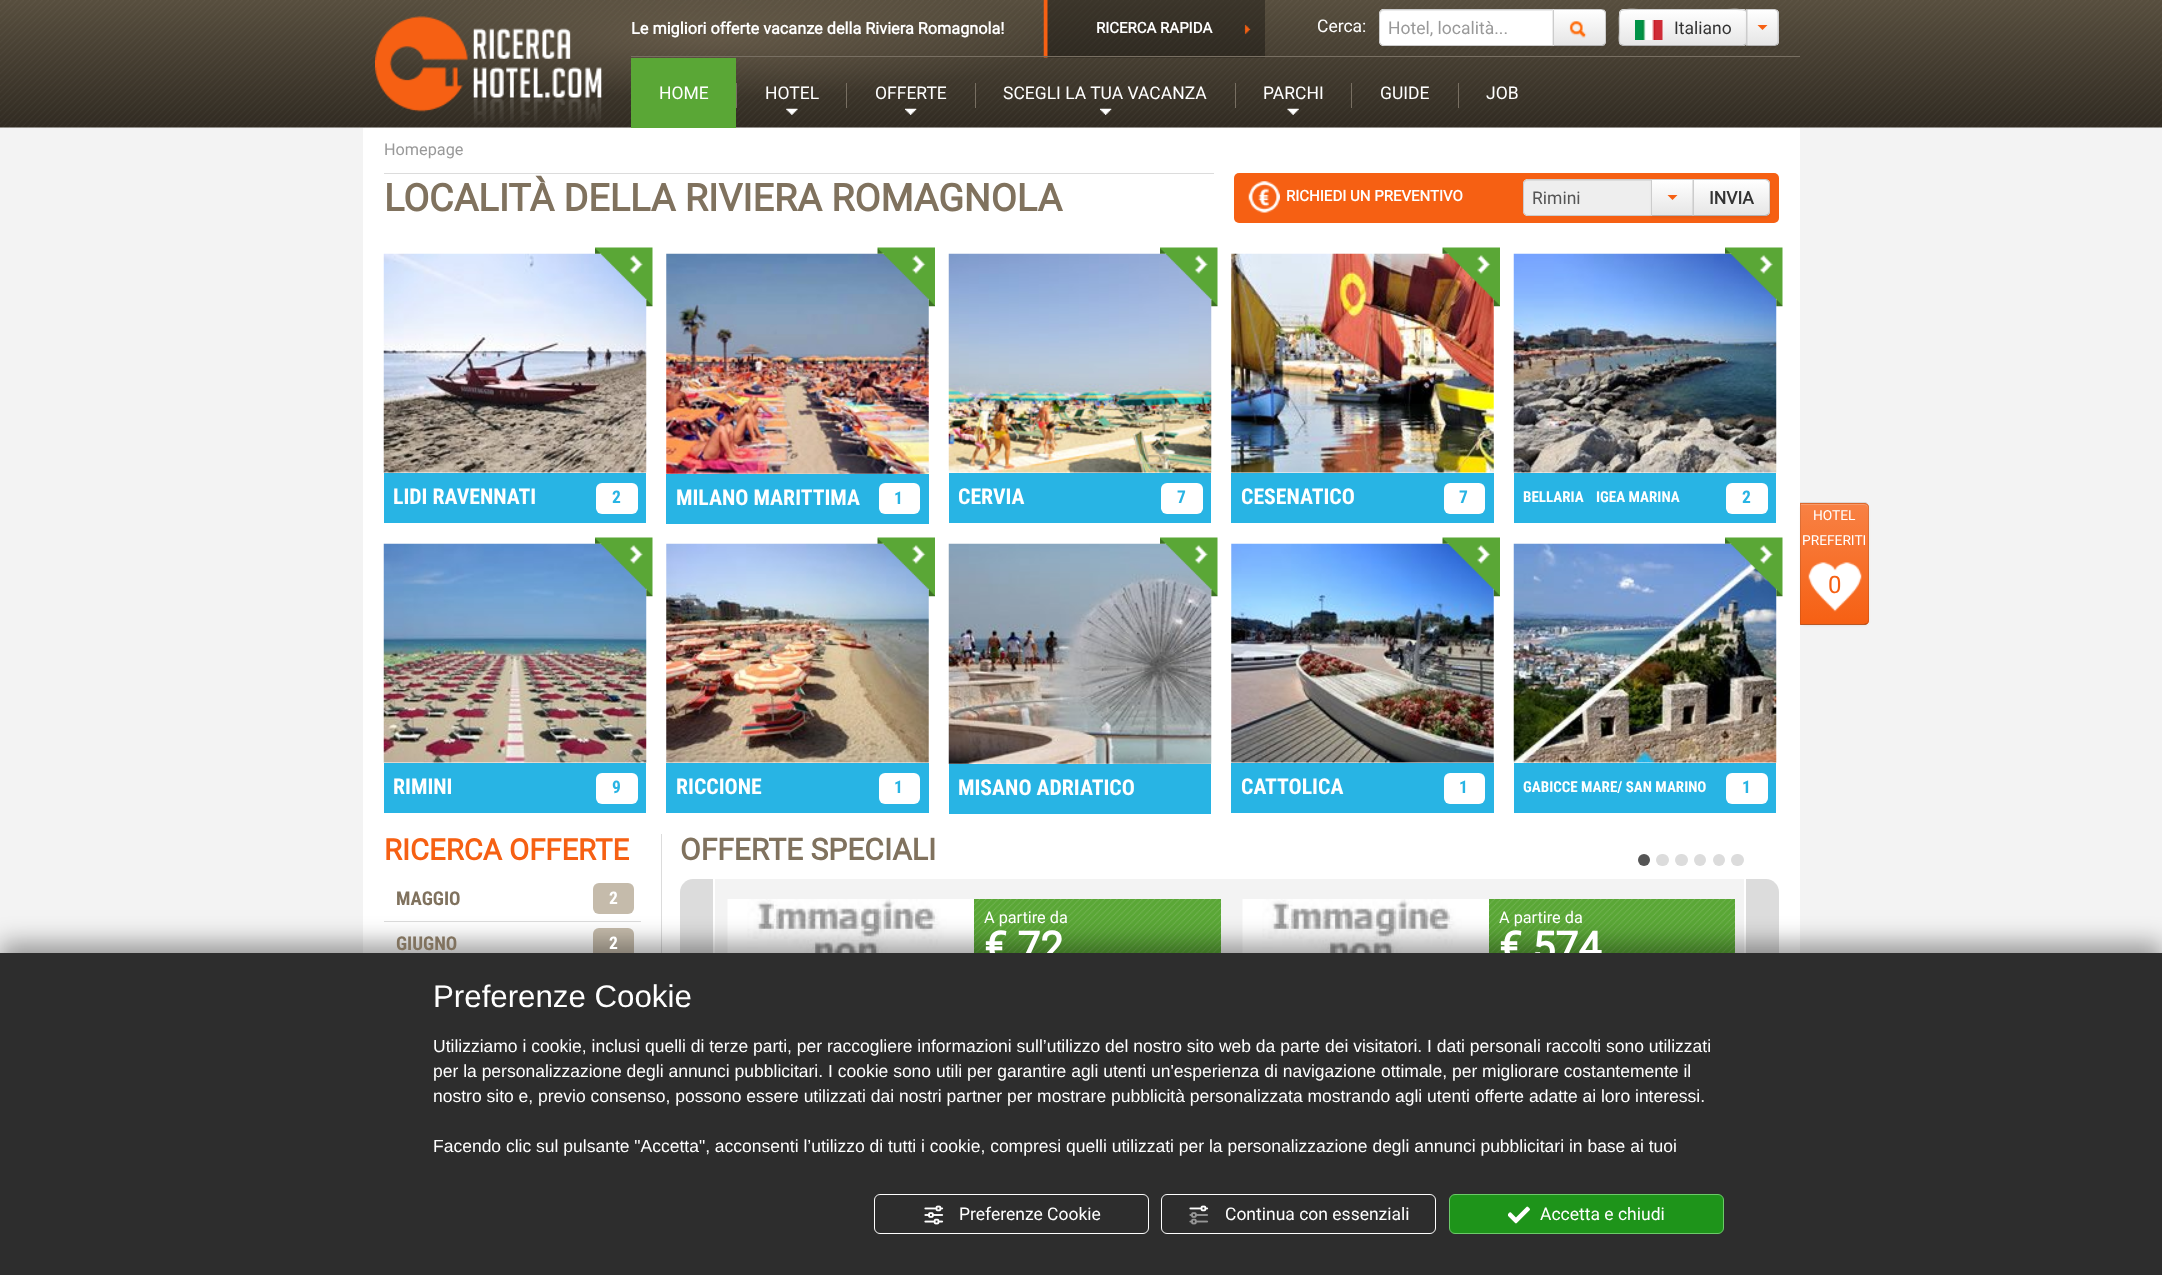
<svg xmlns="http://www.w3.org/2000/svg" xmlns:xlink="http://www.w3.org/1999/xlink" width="2162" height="1275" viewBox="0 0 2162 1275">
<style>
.cls-1{font:bold 16.25px Roboto;fill:#ffffff}
.cls-2{font:bold 15px Roboto;fill:#ffffff}
.cls-3{font:17.5px Roboto;fill:#ffffff}
.cls-4{font:17.5px Roboto;fill:#999999}
.cls-5{font:17.5px Roboto;fill:#333333}
.cls-6{font:16.25px Roboto;fill:#999999}
.cls-7{font:bold 37.75px Roboto;fill:#80725e}
.cls-8{font:17.5px Roboto;fill:#555555}
.cls-9{font:bold 17.5px Roboto;fill:#333333}
.cls-10{font:bold 21.75px Roboto Condensed;fill:#ffffff}
.cls-11{font:bold 17.5px Roboto Condensed;fill:#28b4e4}
.cls-12{font:bold 15px Roboto Condensed;fill:#ffffff}
.cls-13{font:bold 29.25px Roboto;fill:#f66013}
.cls-14{font:bold 19px Roboto Condensed;fill:#80725e}
.cls-15{font:bold 17.5px Roboto Condensed;fill:#ffffff}
.cls-16{font:bold 30px Roboto;fill:#80725e}
.cls-17{font:16.25px Roboto;fill:#ffffff}
.cls-18{font:bold 41px Roboto;fill:#ffffff}
.cls-19{font:13.75px Roboto;fill:#ffffff}
.cls-20{font:24px Roboto;fill:#f66013}
.cls-21{font:31.25px Liberation Sans;fill:#ffffff}
.cls-22{font:17.5px Liberation Sans;fill:#ffffff}
</style>
<defs>
<clipPath id="clip1"><path d="M1553 9H1601C1604 9 1606 11 1606 14V41C1606 44 1604 46 1601 46H1553Z"/></clipPath>
<linearGradient id="g1" gradientUnits="userSpaceOnUse" x1="1579" y1="10" x2="1579" y2="45"><stop offset="0" stop-color="#ffffff"/><stop offset="1" stop-color="#e6e6e6"/></linearGradient>
<clipPath id="clip2"><rect x="1619" y="9" width="129" height="37" rx="5"/></clipPath>
<linearGradient id="g2" gradientUnits="userSpaceOnUse" x1="1683" y1="10" x2="1683" y2="45"><stop offset="0" stop-color="#ffffff"/><stop offset="1" stop-color="#e6e6e6"/></linearGradient>
<clipPath id="clip3"><path d="M1746 9H1774C1777 9 1779 11 1779 14V41C1779 44 1777 46 1774 46H1746Z"/></clipPath>
<linearGradient id="g3" gradientUnits="userSpaceOnUse" x1="1763" y1="10" x2="1763" y2="45"><stop offset="0" stop-color="#ffffff"/><stop offset="1" stop-color="#e6e6e6"/></linearGradient>
<linearGradient id="g4" gradientUnits="userSpaceOnUse" x1="1673" y1="180" x2="1673" y2="215"><stop offset="0" stop-color="#ffffff"/><stop offset="1" stop-color="#e6e6e6"/></linearGradient>
<clipPath id="clip4"><path d="M1693 179H1765C1768 179 1770 181 1770 184V211C1770 214 1768 216 1765 216H1693Z"/></clipPath>
<linearGradient id="g5" gradientUnits="userSpaceOnUse" x1="1731" y1="180" x2="1731" y2="215"><stop offset="0" stop-color="#ffffff"/><stop offset="1" stop-color="#e6e6e6"/></linearGradient>
<clipPath id="clip5"><path d="M1800 503H1864C1867 503 1869 505 1869 508V620C1869 623 1867 625 1864 625H1800Z"/></clipPath>
<linearGradient id="g6" gradientUnits="userSpaceOnUse" x1="1834" y1="504" x2="1834" y2="624"><stop offset="0" stop-color="#f88144"/><stop offset="1" stop-color="#f66013"/></linearGradient>
</defs>
<rect width="100%" height="100%" fill="#f3f3f3"/>
<image xlink:href="image0.png" x="0" y="0" width="2162" height="128"/>
<image xlink:href="image1.png" x="375" y="16" width="227" height="107"/>
<image xlink:href="image2.png" x="1043" y="0" width="222" height="58"/>
<g clip-path="url(#clip1)">
<rect fill="url(#g1)" x="1554" y="10" width="52" height="35"/>
</g>
<path fill="#cccccc" d="M1554 10H1602L1604 11L1605 10C1604 10 1602 9 1601 9H1553Z"/>
<path fill="#cccccc" d="M1604.5 10.5C1605.5 11 1606 12.5 1606 14V41C1606 42.5 1605.5 44 1604.5 44.5L1604 44C1604.5 43 1605 42 1605 41V14C1605 13 1604.5 12 1604 11Z"/>
<path fill="#b3b3b3" d="M1605 45C1604 46 1602 46 1601 46H1553L1554 45H1602L1604 44Z"/>
<path fill="#ffffff" d="M1384 9H1554V46H1384C1381 46 1379 44 1379 41V14C1379 11 1381 9 1384 9Z"/>
<path fill="#ececec" d="M1384 11H1552V45H1553V10H1384C1381 10 1380 12 1380 15C1380 13 1382 11 1384 11Z"/>
<path fill="none" stroke="#cccccc" d="M1384 9.5H1553.5V45.5H1384C1381.5 45.5 1379.5 43.5 1379.5 41V14C1379.5 11.5 1381.5 9.5 1384 9.5Z"/>
<image xlink:href="image3.png" x="1569" y="21" width="18" height="17"/>
<rect fill="#f5f5f5" x="1619" y="9" width="129" height="37" rx="5"/>
<g clip-path="url(#clip2)">
<rect fill="url(#g2)" x="1619" y="10" width="127" height="35"/>
</g>
<path fill="#ffffff" fill-opacity="0.2" d="M1624 11H1742C1745 11 1746 13 1746 15C1746 5 1725 10 1722 10H1644C1641 10 1620 5 1620 15C1620 13 1622 11 1624 11Z"/>
<path fill="none" stroke="#b3b3b3" stroke-width="1.2" d="M1745.5 44.5L1743 45.5H1643.5H1624L1620.5 44.5"/>
<path fill="none" stroke="#cccccc" stroke-width="1.2" d="M1620.5 44.5C1618 41.5 1619.5 35 1619.5 32C1619.5 5 1615 9.5 1643.5 9.5H1722.5C1751.5 9.5 1747 5 1747 32C1747 35 1748.5 41.5 1745.5 44.5"/>
<image xlink:href="image4.png" x="1635" y="20" width="28" height="20"/>
<rect fill="#000000" fill-opacity="0.05" filter="blur(1px)" x="1746" y="10" width="33" height="38" rx="5"/>
<g clip-path="url(#clip3)">
<rect fill="url(#g3)" x="1747" y="10" width="32" height="35"/>
</g>
<rect fill="#ffffff" fill-opacity="0.12" x="1748" y="40" width="1" height="5"/>
<path fill="#cccccc" d="M1747.5 10H1774C1775 10 1776 10.5 1776.5 11L1777.5 10C1776.5 9.5 1775 9 1774 9H1746.5Z"/>
<path fill="#cccccc" d="M1777.5 10L1779 12.5V42.5L1777.5 45L1776.5 44C1777 43.5 1777.5 42.5 1777.5 41V14C1777.5 12.5 1777 11.5 1776.5 11Z"/>
<path fill="#b3b3b3" d="M1777.5 45C1776.5 45.5 1775 46 1774 46H1746.5L1747.5 45H1774C1775 45 1776 44.5 1776.5 44Z"/>
<path fill="#cccccc" d="M1747.5 10V45L1746 46V9H1746.5Z"/>
<path fill="#f66013" d="M1757.5 25H1767.5L1762.5 30Z"/>
<rect fill="#786f62" x="631" y="56" width="1169" height="1"/>
<rect fill="#5aa736" x="631" y="58" width="105" height="70"/>
<rect fill="#786f62" x="736" y="83" width="1" height="25"/>
<image xlink:href="image5.png" x="786" y="108" width="12" height="7"/>
<rect fill="#786f62" x="846" y="83" width="1" height="25"/>
<image xlink:href="image6.png" x="905" y="108" width="12" height="7"/>
<rect fill="#786f62" x="975" y="83" width="1" height="25"/>
<image xlink:href="image7.png" x="1100" y="108" width="12" height="7"/>
<rect fill="#786f62" x="1235" y="83" width="1" height="25"/>
<image xlink:href="image8.png" x="1287" y="108" width="12" height="7"/>
<rect fill="#786f62" x="1351" y="83" width="1" height="25"/>
<rect fill="#786f62" x="1458" y="83" width="1" height="25"/>
<rect fill="#ffffff" x="363" y="128" width="1437" height="825"/>
<rect fill="#dcdcdc" x="384" y="173" width="830" height="1"/>
<rect fill="#f66013" x="1234" y="173" width="545" height="50" rx="5"/>
<image xlink:href="image9.png" x="1248" y="181" width="32" height="32"/>
<path fill="#eeeeee" d="M1528 179H1653V216H1528C1525 216 1523 214 1523 211V184C1523 181 1525 179 1528 179Z"/>
<path fill="#dcdcdc" d="M1528 181H1651V180H1528C1526 180 1524 182 1524 184V185C1524 183 1525 181 1528 181Z"/>
<path fill="none" stroke="#cccccc" d="M1528 179.5H1652.5V215.5H1528C1525.5 215.5 1523.5 213.5 1523.5 211V184C1523.5 181.5 1525.5 179.5 1528 179.5Z"/>
<rect fill="#000000" fill-opacity="0.05" filter="blur(1px)" x="1651" y="180" width="43" height="38"/>
<rect fill="url(#g4)" x="1652" y="180" width="41" height="35"/>
<rect fill="#cccccc" x="1651" y="179" width="43" height="1"/>
<rect fill="#b3b3b3" x="1651" y="215" width="43" height="1"/>
<rect fill="#cccccc" x="1651" y="179" width="1" height="37"/>
<path fill="#f66013" d="M1667.5 195H1677.5L1672.5 200Z"/>
<rect fill="#000000" fill-opacity="0.05" filter="blur(1px)" x="1693" y="180" width="77" height="38" rx="5"/>
<g clip-path="url(#clip4)">
<rect fill="url(#g5)" x="1694" y="180" width="76" height="35"/>
</g>
<path fill="#cccccc" d="M1694 180H1765L1768 181V180C1768 179 1766 179 1765 179H1693Z"/>
<path fill="#cccccc" d="M1768.5 180.5C1769.5 181 1770 182.5 1770 184V211C1770 212.5 1769.5 214 1768.5 214.5L1767.5 214C1768.5 213 1769 212 1769 211V184C1769 183 1768.5 182 1767.5 181Z"/>
<path fill="#b3b3b3" d="M1768 215C1768 216 1766 216 1765 216H1693L1694 215H1765L1768 214Z"/>
<path fill="#cccccc" d="M1692.5 179L1694 180V215L1693 216H1692.5Z"/>
<image xlink:href="image11.png" x="383" y="253" width="264" height="220"/>
<image xlink:href="image10.png" x="595" y="247" width="58" height="60"/>
<rect fill="#28b4e4" x="384" y="473" width="262" height="50"/>
<rect fill="#ffffff" x="596" y="483" width="42" height="31" rx="6"/>
<image xlink:href="image13.png" x="666" y="253" width="263" height="221"/>
<image xlink:href="image12.png" x="877" y="247" width="58" height="60"/>
<rect fill="#28b4e4" x="666" y="474" width="263" height="50"/>
<rect fill="#ffffff" x="879" y="483" width="41" height="31" rx="6"/>
<image xlink:href="image15.png" x="948" y="253" width="264" height="220"/>
<image xlink:href="image14.png" x="1160" y="247" width="58" height="60"/>
<rect fill="#28b4e4" x="949" y="473" width="262" height="50"/>
<rect fill="#ffffff" x="1161" y="483" width="42" height="31" rx="6"/>
<image xlink:href="image17.png" x="1231" y="253" width="263" height="220"/>
<image xlink:href="image16.png" x="1442" y="247" width="58" height="60"/>
<rect fill="#28b4e4" x="1231" y="473" width="263" height="50"/>
<rect fill="#ffffff" x="1444" y="483" width="41" height="31" rx="6"/>
<image xlink:href="image19.png" x="1513" y="253" width="264" height="220"/>
<image xlink:href="image18.png" x="1725" y="247" width="58" height="60"/>
<rect fill="#28b4e4" x="1514" y="473" width="262" height="50"/>
<rect fill="#ffffff" x="1726" y="483" width="42" height="31" rx="6"/>
<image xlink:href="image21.png" x="383" y="543" width="264" height="220"/>
<image xlink:href="image20.png" x="595" y="537" width="58" height="60"/>
<rect fill="#28b4e4" x="384" y="763" width="262" height="50"/>
<rect fill="#ffffff" x="596" y="773" width="42" height="31" rx="6"/>
<image xlink:href="image23.png" x="666" y="543" width="263" height="220"/>
<image xlink:href="image22.png" x="877" y="537" width="58" height="60"/>
<rect fill="#28b4e4" x="666" y="763" width="263" height="50"/>
<rect fill="#ffffff" x="879" y="773" width="41" height="31" rx="6"/>
<image xlink:href="image25.png" x="948" y="543" width="264" height="221"/>
<image xlink:href="image24.png" x="1160" y="537" width="58" height="60"/>
<rect fill="#28b4e4" x="949" y="764" width="262" height="50"/>
<image xlink:href="image27.png" x="1231" y="543" width="263" height="220"/>
<image xlink:href="image26.png" x="1442" y="537" width="58" height="60"/>
<rect fill="#28b4e4" x="1231" y="763" width="263" height="50"/>
<rect fill="#ffffff" x="1444" y="773" width="41" height="31" rx="6"/>
<image xlink:href="image29.png" x="1513" y="543" width="264" height="220"/>
<image xlink:href="image28.png" x="1725" y="537" width="58" height="60"/>
<rect fill="#28b4e4" x="1514" y="763" width="262" height="50"/>
<rect fill="#ffffff" x="1726" y="773" width="42" height="31" rx="6"/>
<rect fill="#dcdcdc" x="384" y="921" width="257" height="1"/>
<rect fill="#c5bbab" x="593" y="883" width="41" height="31" rx="6"/>
<rect fill="#c5bbab" x="593" y="928" width="41" height="31" rx="6"/>
<rect fill="#dcdcdc" x="661" y="834" width="1" height="119"/>
<circle fill="#555555" cx="1644" cy="860" r="6"/>
<rect fill="#dcdcdc" x="1656" y="854" width="13" height="12" rx="6"/>
<rect fill="#dcdcdc" x="1675" y="854" width="13" height="12" rx="6"/>
<circle fill="#dcdcdc" cx="1700" cy="860" r="6"/>
<circle fill="#dcdcdc" cx="1719" cy="860" r="6"/>
<rect fill="#dcdcdc" x="1731" y="854" width="13" height="12" rx="6"/>
<path fill="#dcdcdc" d="M693 879H713V1129H693C686 1129 680 1123 680 1116V892C680 885 686 879 693 879Z"/>
<rect fill="#f3f3f3" x="715" y="879" width="1029" height="74"/>
<rect fill="#ffffff" x="947" y="899" width="27" height="54"/>
<image xlink:href="image30.png" x="727" y="899" width="220" height="54"/>
<rect fill="#5aa736" x="974" y="899" width="247" height="54"/>
<image xlink:href="image31.png" x="974" y="899" width="247" height="54"/>
<rect fill="#ffffff" x="1462" y="899" width="27" height="54"/>
<image xlink:href="image32.png" x="1242" y="899" width="220" height="54"/>
<rect fill="#5aa736" x="1489" y="899" width="246" height="54"/>
<image xlink:href="image33.png" x="1489" y="899" width="246" height="54"/>
<path fill="#dcdcdc" d="M1746 879H1766C1773 879 1779 885 1779 892V1116C1779 1123 1773 1129 1766 1129H1746Z"/>
<rect fill="#000000" fill-opacity="0.05" filter="blur(1px)" x="1800" y="504" width="69" height="122" rx="5"/>
<path fill="#f77430" d="M1800 503H1864C1867 503 1869 505 1869 508V620C1869 623 1867 625 1864 625H1800Z"/>
<g clip-path="url(#clip5)">
<rect fill="url(#g6)" x="1800" y="504" width="69" height="120"/>
</g>
<path fill="#f99a69" d="M1801 505H1864C1866 505 1868 507 1868 509V508C1868 506 1866 504 1864 504H1801Z"/>
<path fill="#000000" fill-opacity="0.1" d="M1800 502H1866L1868 504L1867 505L1864 504H1802Z"/>
<path fill="#000000" fill-opacity="0.1" d="M1869 622L1867 624V623C1867 622 1868 621 1868 620V508C1868 506 1867 505 1867 505L1868 504L1869 506Z"/>
<path fill="#000000" fill-opacity="0.25" d="M1864 625C1865 625 1867 625 1867 624V623L1864 624H1801L1800 625Z"/>
<path fill="#000000" fill-opacity="0.1" d="M1801 504H1802L1800 502V625L1801 624Z"/>
<image xlink:href="image34.png" x="1808" y="562" width="54" height="50"/>
<rect fill="#000000" fill-opacity="0.38" filter="blur(12.5px)" x="0" y="943" width="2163" height="322"/>
<text class="cls-1" x="631" y="34">Le migliori offerte vacanze della Riviera Romagnola!</text>
<text class="cls-2" x="1096" y="33">RICERCA RAPIDA</text>
<text class="cls-3" x="1317" y="32">Cerca:</text>
<text class="cls-4" x="1388" y="34">Hotel, località...</text>
<text class="cls-5" x="1674" y="34">Italiano</text>
<text class="cls-3" x="659" y="99">HOME</text>
<text class="cls-3" x="765" y="99">HOTEL</text>
<text class="cls-3" x="875" y="99">OFFERTE</text>
<text class="cls-3" x="1003" y="99">SCEGLI LA TUA VACANZA</text>
<text class="cls-3" x="1263" y="99">PARCHI</text>
<text class="cls-3" x="1380" y="99">GUIDE</text>
<text class="cls-3" x="1486" y="99">JOB</text>
<text class="cls-6" x="384" y="155">Homepage</text>
<text class="cls-7" x="384" y="211">LOCALITÀ DELLA RIVIERA ROMAGNOLA</text>
<text class="cls-2" x="1286" y="201">RICHIEDI UN PREVENTIVO</text>
<text class="cls-8" x="1532" y="204">Rimini</text>
<text class="cls-9" x="1709" y="204">INVIA</text>
<text class="cls-10" x="393" y="504">LIDI RAVENNATI</text>
<text class="cls-11" x="612" y="503">2</text>
<text class="cls-10" x="676" y="505">MILANO MARITTIMA</text>
<text class="cls-11" x="894" y="504">1</text>
<text class="cls-10" x="958" y="504">CERVIA</text>
<text class="cls-11" x="1177" y="503">7</text>
<text class="cls-10" x="1241" y="504">CESENATICO</text>
<text class="cls-11" x="1459" y="503">7</text>
<text class="cls-12" x="1523" y="502">BELLARIA</text>
<text class="cls-12" x="1596" y="502">IGEA MARINA</text>
<text class="cls-11" x="1742" y="503">2</text>
<text class="cls-10" x="393" y="794">RIMINI</text>
<text class="cls-11" x="612" y="793">9</text>
<text class="cls-10" x="676" y="794">RICCIONE</text>
<text class="cls-11" x="894" y="793">1</text>
<text class="cls-10" x="958" y="795">MISANO ADRIATICO</text>
<text class="cls-10" x="1241" y="794">CATTOLICA</text>
<text class="cls-11" x="1459" y="793">1</text>
<text class="cls-12" x="1523" y="792">GABICCE MARE/ SAN MARINO</text>
<text class="cls-11" x="1742" y="793">1</text>
<text class="cls-13" x="384" y="860">RICERCA OFFERTE</text>
<text class="cls-14" x="396" y="905">MAGGIO</text>
<text class="cls-15" x="609" y="904">2</text>
<text class="cls-14" x="396" y="950">GIUGNO</text>
<text class="cls-15" x="609" y="949">2</text>
<text class="cls-16" x="680" y="860">OFFERTE SPECIALI</text>
<text class="cls-17" x="984" y="923">A partire da</text>
<text class="cls-18" x="984" y="961">€ 72</text>
<text class="cls-17" x="1499" y="923">A partire da</text>
<text class="cls-18" x="1499" y="961">€ 574</text>
<text class="cls-19" x="1813" y="520">HOTEL</text>
<text class="cls-19" x="1802" y="545">PREFERITI</text>
<text class="cls-20" x="1828" y="593">0</text>
<rect fill="#2d2d2d" x="0" y="953" width="2162" height="322"/>
<text class="cls-21" x="433" y="1007">Preferenze Cookie</text>
<text class="cls-22"><tspan x="433" y="1052">Utilizziamo i cookie, inclusi quelli di terze parti, per raccogliere informazioni sull’utilizzo del nostro sito web da parte dei visitatori. I dati personali raccolti sono utilizzati</tspan><tspan x="433" y="1077">per la personalizzazione degli annunci pubblicitari. I cookie sono utili per garantire agli utenti un'esperienza di navigazione ottimale, per migliorare costantemente il</tspan><tspan x="433" y="1102">nostro sito e, previo consenso, possono essere utilizzati dai nostri partner per mostrare pubblicità personalizzata mostrando agli utenti offerte adatte ai loro interessi.</tspan></text>
<text class="cls-22" x="433" y="1152">Facendo clic sul pulsante "Accetta", acconsenti l’utilizzo di tutti i cookie, compresi quelli utilizzati per la personalizzazione degli annunci pubblicitari in base ai tuoi</text>
<rect fill="none" stroke="#ffffff" x="874.5" y="1194.5" width="274" height="39" rx="5.5"/>
<image xlink:href="image35.png" x="924" y="1205" width="20" height="20"/>
<text class="cls-3" x="959" y="1220">Preferenze Cookie</text>
<rect fill="none" stroke="#ffffff" x="1161.5" y="1194.5" width="274" height="39" rx="5.5"/>
<image xlink:href="image36.png" x="1189" y="1205" width="20" height="20"/>
<text class="cls-3" x="1225" y="1220">Continua con essenziali</text>
<rect fill="#1e941a" stroke="#6cca69" x="1449.5" y="1194.5" width="274" height="39" rx="5.5"/>
<image xlink:href="image37.png" x="1508" y="1206" width="22" height="18"/>
<text class="cls-3" x="1540" y="1220">Accetta e chiudi</text>
</svg>
